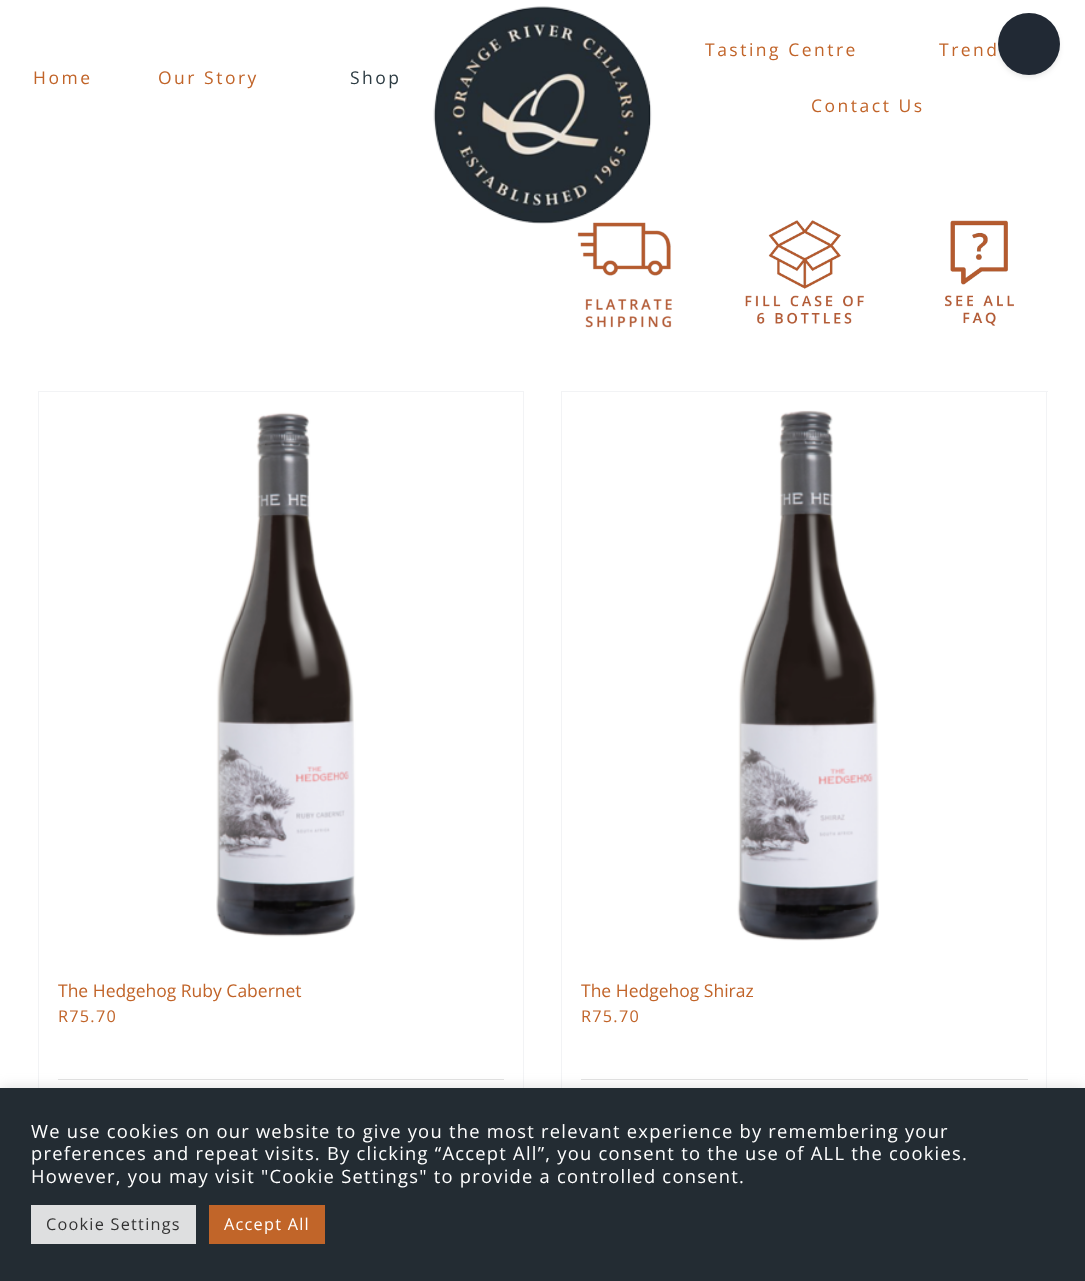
<svg xmlns="http://www.w3.org/2000/svg" xmlns:xlink="http://www.w3.org/1999/xlink" width="1085" height="1281" viewBox="0 0 1085 1281">
<style>
.cls-1{font:17.5px Open Sans;letter-spacing:2.5px;fill:#c16429}
.cls-2{font:17.5px Open Sans;letter-spacing:2.5px;fill:#2c3b42}
.cls-3{font:17.5px Open Sans;fill:#c16429}
.cls-4{font:16.25px Open Sans;letter-spacing:1.25px;fill:#c16429}
.cls-5{font:18.33px Open Sans;letter-spacing:1.25px;fill:#ffffff}
.cls-6{font:16.25px Open Sans;letter-spacing:1.25px;fill:#333333}
.cls-7{font:16.25px Open Sans;letter-spacing:1.25px;fill:#ffffff}
</style>
<rect width="100%" height="100%" fill="#ffffff"/>
<image xlink:href="image1.png" x="577" y="222" width="95" height="106"/>
<image xlink:href="image0.png" x="433" y="6" width="219" height="218"/>
<rect fill="#000000" fill-opacity="0.14" filter="blur(3px)" x="1000" y="19" width="58" height="57" rx="28.5"/>
<circle fill="#212934" cx="1029" cy="44" r="31"/>
<image xlink:href="image2.png" x="745" y="220" width="119" height="104"/>
<image xlink:href="image3.png" x="945" y="220" width="69" height="106"/>
<rect fill="#f2f3f5" x="38" y="391" width="486" height="1"/>
<rect fill="#f2f3f5" x="523" y="391" width="1" height="697"/>
<rect fill="#f2f3f5" x="38" y="391" width="1" height="697"/>
<image xlink:href="image4.png" x="216" y="412" width="140" height="525"/>
<rect fill="#e2e2e2" x="58" y="1079" width="446" height="1"/>
<rect fill="#f2f3f5" x="561" y="391" width="487" height="1"/>
<rect fill="#f2f3f5" x="1046" y="391" width="1" height="697"/>
<rect fill="#f2f3f5" x="561" y="391" width="1" height="697"/>
<image xlink:href="image5.png" x="737" y="410" width="142" height="531"/>
<rect fill="#e2e2e2" x="581" y="1079" width="447" height="1"/>
<rect fill="#acabab" fill-opacity="0.3" filter="blur(6px)" x="0" y="1086" width="1085" height="194"/>
<rect fill="#232c33" x="0" y="1088" width="1085" height="193"/>
<rect fill="#dedfe0" x="31" y="1205" width="165" height="39"/>
<rect fill="#c16529" x="209" y="1205" width="116" height="39"/>
<text class="cls-1" x="33" y="84">Home</text>
<text class="cls-1" x="158" y="84">Our Story</text>
<text class="cls-2" x="350" y="84">Shop</text>
<text class="cls-1" x="705" y="56">Tasting Centre</text>
<text class="cls-1" x="939" y="56">Trend</text>
<text class="cls-1" x="811" y="112">Contact Us</text>
<text class="cls-3" x="58" y="997">The Hedgehog Ruby Cabernet</text>
<text class="cls-4" x="58" y="1022">R75.70</text>
<text class="cls-3" x="581" y="997">The Hedgehog Shiraz</text>
<text class="cls-4" x="581" y="1022">R75.70</text>
<text class="cls-5"><tspan x="31" y="1138">We use cookies on our website to give you the most relevant experience by remembering your</tspan><tspan x="31" y="1160">preferences and repeat visits. By clicking “Accept All”, you consent to the use of ALL the cookies.</tspan><tspan x="31" y="1183">However, you may visit "Cookie Settings" to provide a controlled consent.</tspan></text>
<text class="cls-6" x="46" y="1230">Cookie Settings</text>
<text class="cls-7" x="224" y="1230">Accept All</text>
</svg>
